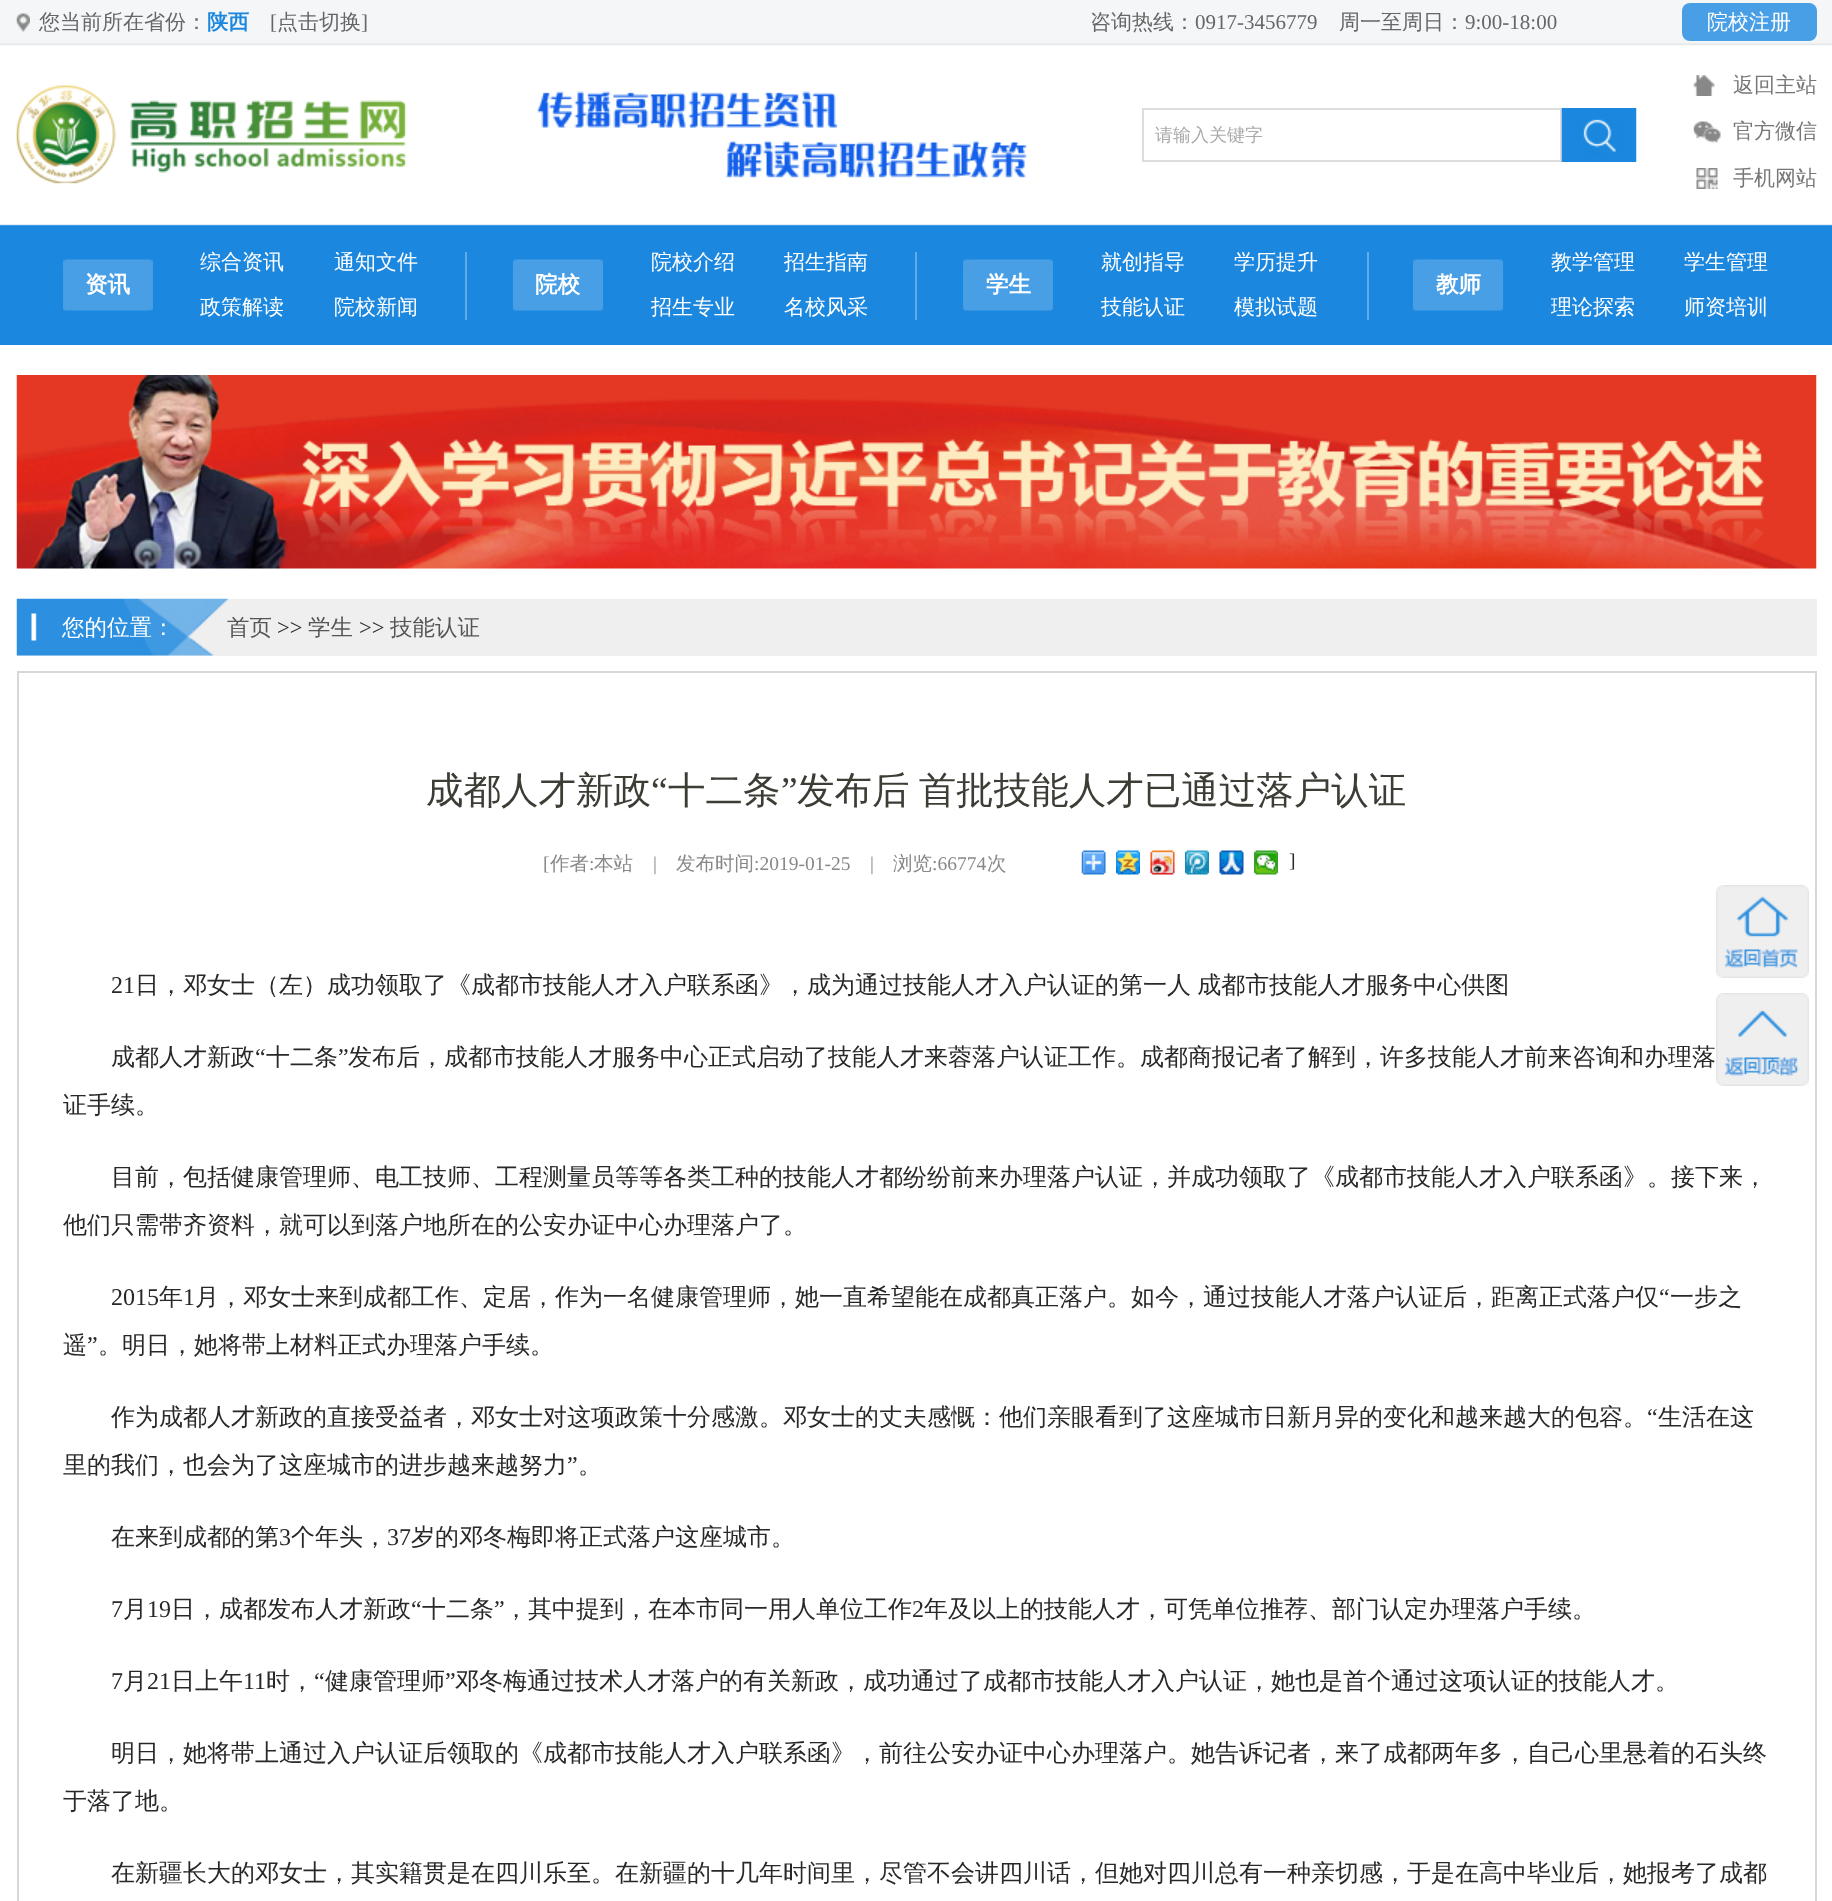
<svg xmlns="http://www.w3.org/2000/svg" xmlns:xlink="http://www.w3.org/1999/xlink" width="1832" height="1901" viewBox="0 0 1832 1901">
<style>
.cls-1{font:500 21px WenQuanYi Zen Hei;fill:#666666}
.cls-2{font:bold 21px WenQuanYi Zen Hei;fill:#1b87de}
.cls-3{font:21px Liberation Serif;fill:#666666}
.cls-4{font:500 21px WenQuanYi Zen Hei;fill:#ffffff}
.cls-5{font:500 18px WenQuanYi Zen Hei;fill:#aaaaaa}
.cls-6{font:500 21px WenQuanYi Zen Hei;fill:#777777}
.cls-7{font:bold 22.5px WenQuanYi Zen Hei;fill:#ffffff}
.cls-8{font:500 22.5px WenQuanYi Zen Hei;fill:#ffffff}
.cls-9{font:500 22.5px WenQuanYi Zen Hei;fill:#555555}
.cls-10{font:22.5px Liberation Serif;fill:#292828}
.cls-11{font:500 37.5px WenQuanYi Zen Hei;fill:#3d3d36}
.cls-12{font:37.5px Liberation Serif;fill:#3d3d36}
.cls-13{font:19.5px Liberation Serif;fill:#888888}
.cls-14{font:500 19.5px WenQuanYi Zen Hei;fill:#888888}
.cls-15{font:19.5px Liberation Serif;fill:#292828}
.cls-16{font:24px Liberation Serif;fill:#292828}
.cls-17{font:500 24px WenQuanYi Zen Hei;fill:#292828}
</style>
<defs>
<clipPath id="clip1"><rect x="332" y="252" width="87" height="33"/></clipPath>
<clipPath id="clip2"><rect x="783" y="252" width="87" height="33"/></clipPath>
<clipPath id="clip3"><rect x="1100" y="252" width="87" height="33"/></clipPath>
<clipPath id="clip4"><rect x="1233" y="252" width="87" height="33"/></clipPath>
</defs>
<rect width="100%" height="100%" fill="#ffffff"/>
<image xlink:href="image0.png" x="0" y="0" width="1832" height="345"/>
<image xlink:href="image1.png" x="16" y="13" width="14" height="19"/>
<rect fill="#489fe6" x="1682" y="3" width="135" height="38" rx="8"/>
<image xlink:href="image2.png" x="16" y="85" width="390" height="99"/>
<image xlink:href="image3.png" x="537" y="91" width="490" height="87"/>
<rect fill="none" stroke="#dddddd" stroke-width="2" x="1143" y="109" width="418" height="52"/>
<image xlink:href="image4.png" x="1561" y="108" width="76" height="54"/>
<image xlink:href="image5.png" x="1693" y="75" width="22" height="21"/>
<image xlink:href="image6.png" x="1693" y="121" width="28" height="22"/>
<image xlink:href="image7.png" x="1696" y="168" width="22" height="21"/>
<image xlink:href="image8.png" x="63" y="259" width="90" height="52"/>
<rect fill="#60abe8" x="465" y="252" width="2" height="68"/>
<image xlink:href="image9.png" x="513" y="259" width="90" height="52"/>
<rect fill="#60abe8" x="915" y="252" width="2" height="68"/>
<image xlink:href="image8.png" x="963" y="259" width="90" height="52"/>
<rect fill="#60abe8" x="1367" y="252" width="2" height="68"/>
<image xlink:href="image8.png" x="1413" y="259" width="90" height="52"/>
<image xlink:href="image10.png" x="16" y="375" width="1801" height="194"/>
<rect fill="#efefef" x="17" y="599" width="1800" height="57"/>
<image xlink:href="image11.png" x="16" y="598" width="212" height="58"/>
<rect fill="none" stroke="#d7d7d7" stroke-width="2" x="18" y="672" width="1798" height="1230"/>
<image xlink:href="image12.png" x="1081" y="850" width="25" height="25"/>
<image xlink:href="image13.png" x="1116" y="850" width="24" height="25"/>
<image xlink:href="image14.png" x="1150" y="850" width="25" height="25"/>
<image xlink:href="image15.png" x="1185" y="850" width="24" height="25"/>
<image xlink:href="image16.png" x="1219" y="850" width="25" height="25"/>
<image xlink:href="image17.png" x="1254" y="850" width="24" height="25"/>
<image xlink:href="image18.png" x="1716" y="885" width="93" height="93"/>
<image xlink:href="image19.png" x="1716" y="993" width="93" height="93"/>
<text class="cls-1" x="39" y="29">您当前所在省份：</text>
<text class="cls-2" x="207" y="29">陕西</text>
<text class="cls-3" x="270" y="29">[</text>
<text class="cls-1" x="277" y="29">点击切换</text>
<text class="cls-3" x="361" y="29">]</text>
<text class="cls-1" x="1090" y="29">咨询热线：</text>
<text class="cls-3" x="1195" y="29">0917-3456779</text>
<text class="cls-1" x="1339" y="29">周一至周日：</text>
<text class="cls-3" x="1465" y="29">9:00-18:00</text>
<text class="cls-4" x="1707" y="29">院校注册</text>
<text class="cls-5" x="1155" y="141">请输入关键字</text>
<text class="cls-6" x="1733" y="92">返回主站</text>
<text class="cls-6" x="1733" y="138">官方微信</text>
<text class="cls-6" x="1733" y="185">手机网站</text>
<text class="cls-4" x="200" y="269">综合资讯</text>
<g clip-path="url(#clip1)">
<text class="cls-4" x="334" y="269">通知文件</text>
</g>
<text class="cls-7" x="85" y="292">资讯</text>
<text class="cls-4" x="200" y="314">政策解读</text>
<text class="cls-4" x="334" y="314">院校新闻</text>
<text class="cls-4" x="651" y="269">院校介绍</text>
<g clip-path="url(#clip2)">
<text class="cls-4" x="784" y="269">招生指南</text>
</g>
<text class="cls-7" x="535" y="292">院校</text>
<text class="cls-4" x="651" y="314">招生专业</text>
<text class="cls-4" x="784" y="314">名校风采</text>
<g clip-path="url(#clip3)">
<text class="cls-4" x="1101" y="269">就创指导</text>
</g>
<g clip-path="url(#clip4)">
<text class="cls-4" x="1234" y="269">学历提升</text>
</g>
<text class="cls-7" x="986" y="292">学生</text>
<text class="cls-4" x="1101" y="314">技能认证</text>
<text class="cls-4" x="1234" y="314">模拟试题</text>
<text class="cls-4" x="1551" y="269">教学管理</text>
<text class="cls-4" x="1684" y="269">学生管理</text>
<text class="cls-7" x="1436" y="292">教师</text>
<text class="cls-4" x="1551" y="314">理论探索</text>
<text class="cls-4" x="1684" y="314">师资培训</text>
<text class="cls-8" x="62" y="635">您的位置：</text>
<text class="cls-9" x="227" y="635">首页</text>
<text class="cls-10" x="277" y="635">&gt;&gt;</text>
<text class="cls-9" x="308" y="635">学生</text>
<text class="cls-10" x="359" y="635">&gt;&gt;</text>
<text class="cls-9" x="390" y="635">技能认证</text>
<text class="cls-11" x="426" y="803">成都人才新政</text>
<text class="cls-12" x="651" y="803">“</text>
<text class="cls-11" x="668" y="803">十二条</text>
<text class="cls-12" x="781" y="803">”</text>
<text class="cls-11" x="797" y="803" word-spacing="-2">发布后 首批技能人才已通过落户认证</text>
<text class="cls-13" x="543" y="870">[</text>
<text class="cls-14" x="550" y="870">作者</text>
<text class="cls-13" x="589" y="870">:</text>
<text class="cls-14" x="594" y="870">本站</text>
<text class="cls-13" x="653" y="870">|</text>
<text class="cls-14" x="676" y="870">发布时间</text>
<text class="cls-13" x="754" y="870">:2019-01-25</text>
<text class="cls-13" x="870" y="870">|</text>
<text class="cls-14" x="893" y="870">浏览</text>
<text class="cls-13" x="932" y="870">:66774</text>
<text class="cls-14" x="987" y="870">次</text>
<text class="cls-15" x="1289" y="867">]</text>
<text class="cls-16" x="111" y="993">21</text>
<text class="cls-17" x="135" y="993" word-spacing="-1">日，邓女士（左）成功领取了《成都市技能人才入户联系函》，成为通过技能人才入户认证的第一人 成都市技能人才服务中心供图</text>
<text class="cls-17" x="111" y="1065">成都人才新政</text>
<text class="cls-16" x="255" y="1065">“</text>
<text class="cls-17" x="266" y="1065">十二条</text>
<text class="cls-16" x="338" y="1065">”</text>
<text class="cls-17" x="348" y="1065">发布后，成都市技能人才服务中心正式启动了技能人才来蓉落户认证工作。成都商报记者了解到，许多技能人才前来咨询和办理落</text>
<text class="cls-17" x="63" y="1113">证手续。</text>
<text class="cls-17" x="111" y="1185">目前，包括健康管理师、电工技师、工程测量员等等各类工种的技能人才都纷纷前来办理落户认证，并成功领取了《成都市技能人才入户联系函》。接下来，</text>
<text class="cls-17" x="63" y="1233">他们只需带齐资料，就可以到落户地所在的公安办证中心办理落户了。</text>
<text class="cls-16" x="111" y="1305">2015</text>
<text class="cls-17" x="159" y="1305">年</text>
<text class="cls-16" x="183" y="1305">1</text>
<text class="cls-17" x="195" y="1305">月，邓女士来到成都工作、定居，作为一名健康管理师，她一直希望能在成都真正落户。如今，通过技能人才落户认证后，距离正式落户仅</text>
<text class="cls-16" x="1659" y="1305">“</text>
<text class="cls-17" x="1670" y="1305">一步之</text>
<text class="cls-17" x="63" y="1353">遥</text>
<text class="cls-16" x="87" y="1353">”</text>
<text class="cls-17" x="98" y="1353">。明日，她将带上材料正式办理落户手续。</text>
<text class="cls-17" x="111" y="1425">作为成都人才新政的直接受益者，邓女士对这项政策十分感激。邓女士的丈夫感慨：他们亲眼看到了这座城市日新月异的变化和越来越大的包容。</text>
<text class="cls-16" x="1647" y="1425">“</text>
<text class="cls-17" x="1658" y="1425">生活在这</text>
<text class="cls-17" x="63" y="1473">里的我们，也会为了这座城市的进步越来越努力</text>
<text class="cls-16" x="567" y="1473">”</text>
<text class="cls-17" x="578" y="1473">。</text>
<text class="cls-17" x="111" y="1545">在来到成都的第</text>
<text class="cls-16" x="279" y="1545">3</text>
<text class="cls-17" x="291" y="1545">个年头，</text>
<text class="cls-16" x="387" y="1545">37</text>
<text class="cls-17" x="411" y="1545">岁的邓冬梅即将正式落户这座城市。</text>
<text class="cls-16" x="111" y="1617">7</text>
<text class="cls-17" x="123" y="1617">月</text>
<text class="cls-16" x="147" y="1617">19</text>
<text class="cls-17" x="171" y="1617">日，成都发布人才新政</text>
<text class="cls-16" x="411" y="1617">“</text>
<text class="cls-17" x="422" y="1617">十二条</text>
<text class="cls-16" x="494" y="1617">”</text>
<text class="cls-17" x="504" y="1617">，其中提到，在本市同一用人单位工作</text>
<text class="cls-16" x="912" y="1617">2</text>
<text class="cls-17" x="924" y="1617">年及以上的技能人才，可凭单位推荐、部门认定办理落户手续。</text>
<text class="cls-16" x="111" y="1689">7</text>
<text class="cls-17" x="123" y="1689">月</text>
<text class="cls-16" x="147" y="1689">21</text>
<text class="cls-17" x="171" y="1689">日上午</text>
<text class="cls-16" x="243" y="1689">11</text>
<text class="cls-17" x="266" y="1689">时，</text>
<text class="cls-16" x="314" y="1689">“</text>
<text class="cls-17" x="325" y="1689">健康管理师</text>
<text class="cls-16" x="445" y="1689">”</text>
<text class="cls-17" x="455" y="1689">邓冬梅通过技术人才落户的有关新政，成功通过了成都市技能人才入户认证，她也是首个通过这项认证的技能人才。</text>
<text class="cls-17" x="111" y="1761">明日，她将带上通过入户认证后领取的《成都市技能人才入户联系函》，前往公安办证中心办理落户。她告诉记者，来了成都两年多，自己心里悬着的石头终</text>
<text class="cls-17" x="63" y="1809">于落了地。</text>
<text class="cls-17" x="111" y="1881">在新疆长大的邓女士，其实籍贯是在四川乐至。在新疆的十几年时间里，尽管不会讲四川话，但她对四川总有一种亲切感，于是在高中毕业后，她报考了成都</text>
</svg>
